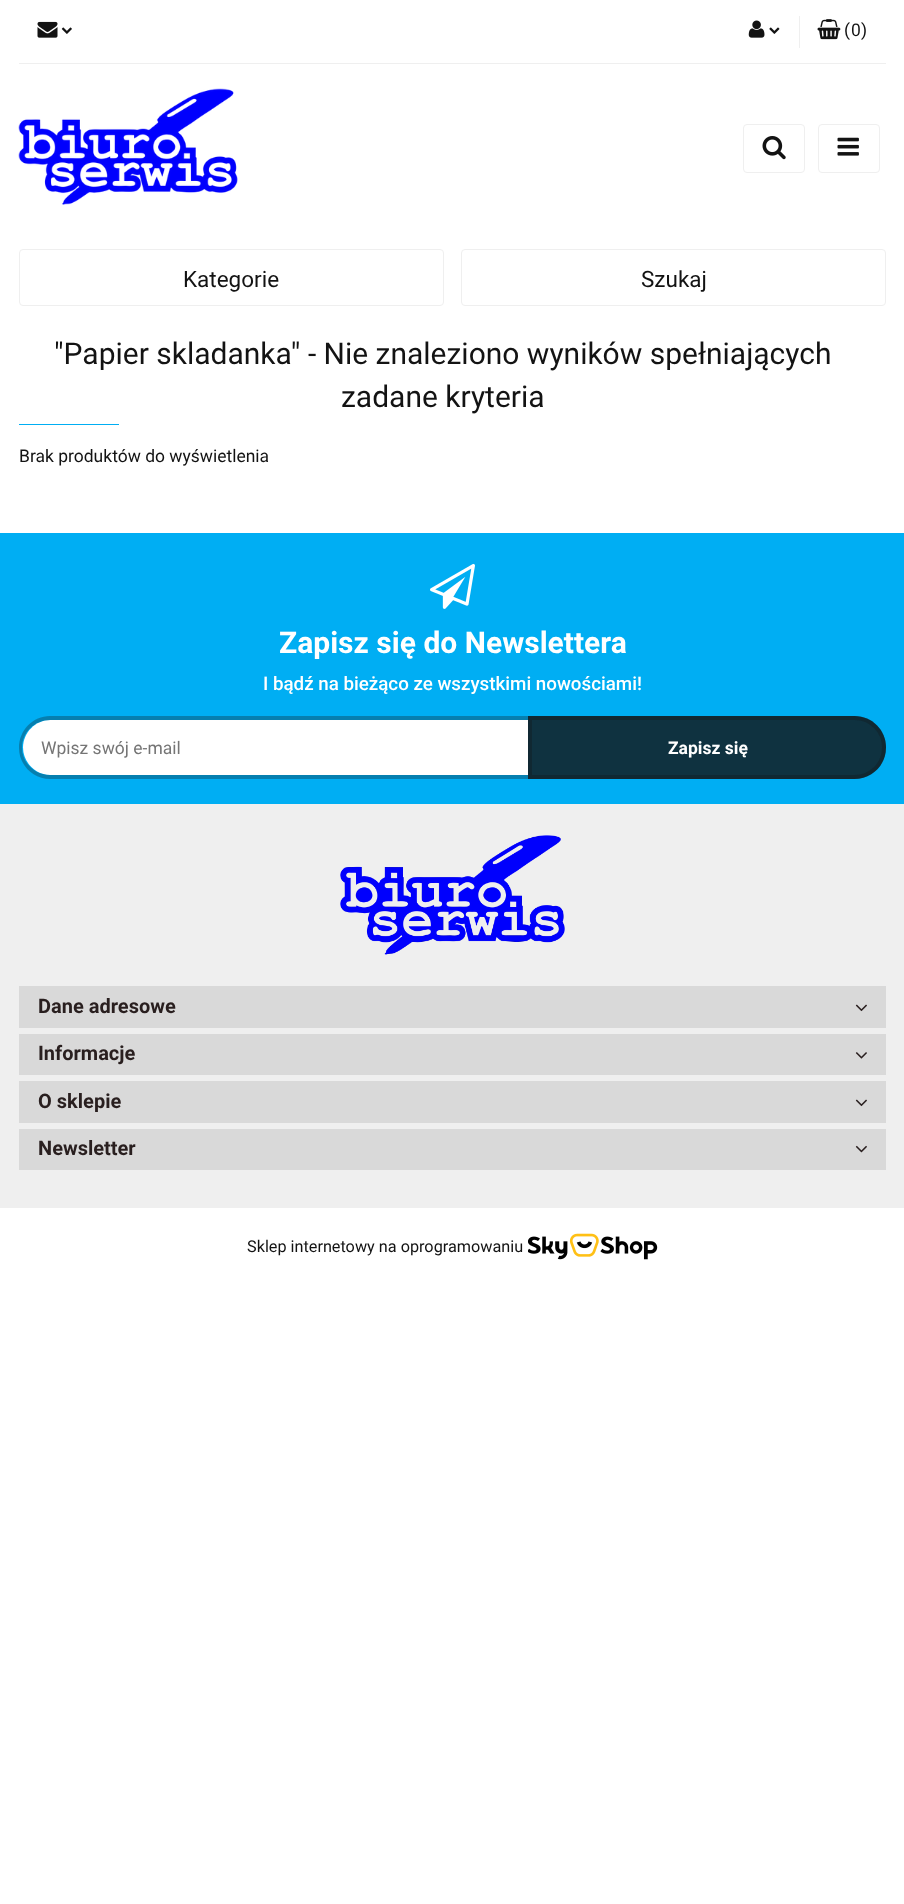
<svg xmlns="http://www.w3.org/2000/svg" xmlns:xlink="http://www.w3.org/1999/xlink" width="904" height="1904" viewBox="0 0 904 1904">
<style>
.cls-1{font:17.5px Roboto;fill:#131313}
.cls-2{font:22.5px Roboto;fill:#131313}
.cls-3{font:30px Roboto;fill:#131313}
.cls-4{font:bold 30px Roboto;fill:#ffffff}
.cls-5{font:500 18.75px Roboto;fill:#ffffff}
.cls-6{font:17.5px Roboto;fill:#757575}
.cls-7{font:bold 17.5px Roboto;fill:#ffffff}
.cls-8{font:bold 20px Roboto;fill:#291f1f}
.cls-9{font:16.25px Roboto;fill:#131313}
</style>
<rect width="100%" height="100%" fill="#ffffff"/>
<rect fill="#efefef" x="19" y="63" width="867" height="1"/>
<image xlink:href="image0.png" x="37" y="21" width="21" height="17"/>
<image xlink:href="image1.png" x="61" y="27" width="11" height="7"/>
<image xlink:href="image2.png" x="748" y="20" width="17" height="18"/>
<image xlink:href="image3.png" x="769" y="27" width="11" height="7"/>
<rect fill="#efefef" x="799" y="16" width="1" height="32"/>
<image xlink:href="image4.png" x="817" y="19" width="24" height="21"/>
<image xlink:href="image5.png" x="18" y="88" width="220" height="117"/>
<rect fill="none" stroke="#efefef" x="743.5" y="124.5" width="61" height="48" rx="3.5"/>
<image xlink:href="image6.png" x="762" y="136" width="24" height="24"/>
<rect fill="none" stroke="#efefef" x="818.5" y="124.5" width="61" height="48" rx="3.5"/>
<image xlink:href="image7.png" x="837" y="137" width="22" height="19"/>
<rect fill="none" stroke="#efefef" x="19.5" y="249.5" width="424" height="56" rx="3.5"/>
<rect fill="none" stroke="#efefef" x="461.5" y="249.5" width="424" height="56" rx="3.5"/>
<rect fill="#00aef3" x="19" y="424" width="100" height="1"/>
<rect fill="#00aef3" x="0" y="533" width="904" height="271"/>
<image xlink:href="image8.png" x="430" y="563" width="45" height="46"/>
<path fill="#ffffff" d="M50.5 720H528V775H50.5C35.5 775 23 762.5 23 747.5C23 732.5 35.5 720 50.5 720Z"/>
<path fill="#131313" fill-opacity="0.3" fill-rule="evenodd" d="M50 716H528V779H50C33 779 19 765 19 748C19 730 33 716 50 716ZM50 720H528V775H50C35 775 22 763 22 748C22 732 35 720 50 720Z"/>
<path fill="#0f3240" d="M528 716H854.5C872 716 886 730 886 747.5C886 765 872 779 854.5 779H528Z"/>
<path fill="none" stroke="#131313" stroke-opacity="0.3" stroke-width="4" d="M530 718H854.5C871 718 884 731 884 747.5C884 764 871 777 854.5 777H530Z"/>
<rect fill="#efefef" x="0" y="804" width="904" height="404"/>
<image xlink:href="image9.png" x="340" y="835" width="225" height="120"/>
<rect fill="#d9d9d9" x="19" y="986" width="867" height="42"/>
<image xlink:href="image10.png" x="855" y="1004" width="12" height="8"/>
<rect fill="#d9d9d9" x="19" y="1034" width="867" height="41"/>
<image xlink:href="image11.png" x="855" y="1052" width="12" height="7"/>
<rect fill="#d9d9d9" x="19" y="1081" width="867" height="42"/>
<image xlink:href="image10.png" x="855" y="1099" width="12" height="8"/>
<rect fill="#d9d9d9" x="19" y="1129" width="867" height="41"/>
<image xlink:href="image12.png" x="855" y="1145" width="12" height="8"/>
<image xlink:href="image13.png" x="528" y="1233" width="130" height="27"/>
<text class="cls-1" x="844" y="36">(</text>
<text class="cls-1" x="851" y="36">0</text>
<text class="cls-1" x="861" y="36">)</text>
<text class="cls-2" x="183" y="287">Kategorie</text>
<text class="cls-2" x="641" y="287">Szukaj</text>
<text class="cls-3" x="54" y="364">"Papier skladanka" - Nie znaleziono wyników spełniających</text>
<text class="cls-3" x="341" y="407">zadane kryteria</text>
<text class="cls-1" x="19" y="462">Brak produktów do wyświetlenia</text>
<text class="cls-4" x="279" y="653">Zapisz się do Newslettera</text>
<text class="cls-5" x="263" y="690">I bądź na bieżąco ze wszystkimi nowościami!</text>
<text class="cls-6" x="41" y="754">Wpisz swój e-mail</text>
<text class="cls-7" x="668" y="754">Zapisz się</text>
<text class="cls-8" x="38" y="1013">Dane adresowe</text>
<text class="cls-8" x="38" y="1060">Informacje</text>
<text class="cls-8" x="38" y="1108">O sklepie</text>
<text class="cls-8" x="38" y="1155">Newsletter</text>
<text class="cls-9" x="247" y="1252">Sklep internetowy na oprogramowaniu</text>
</svg>
